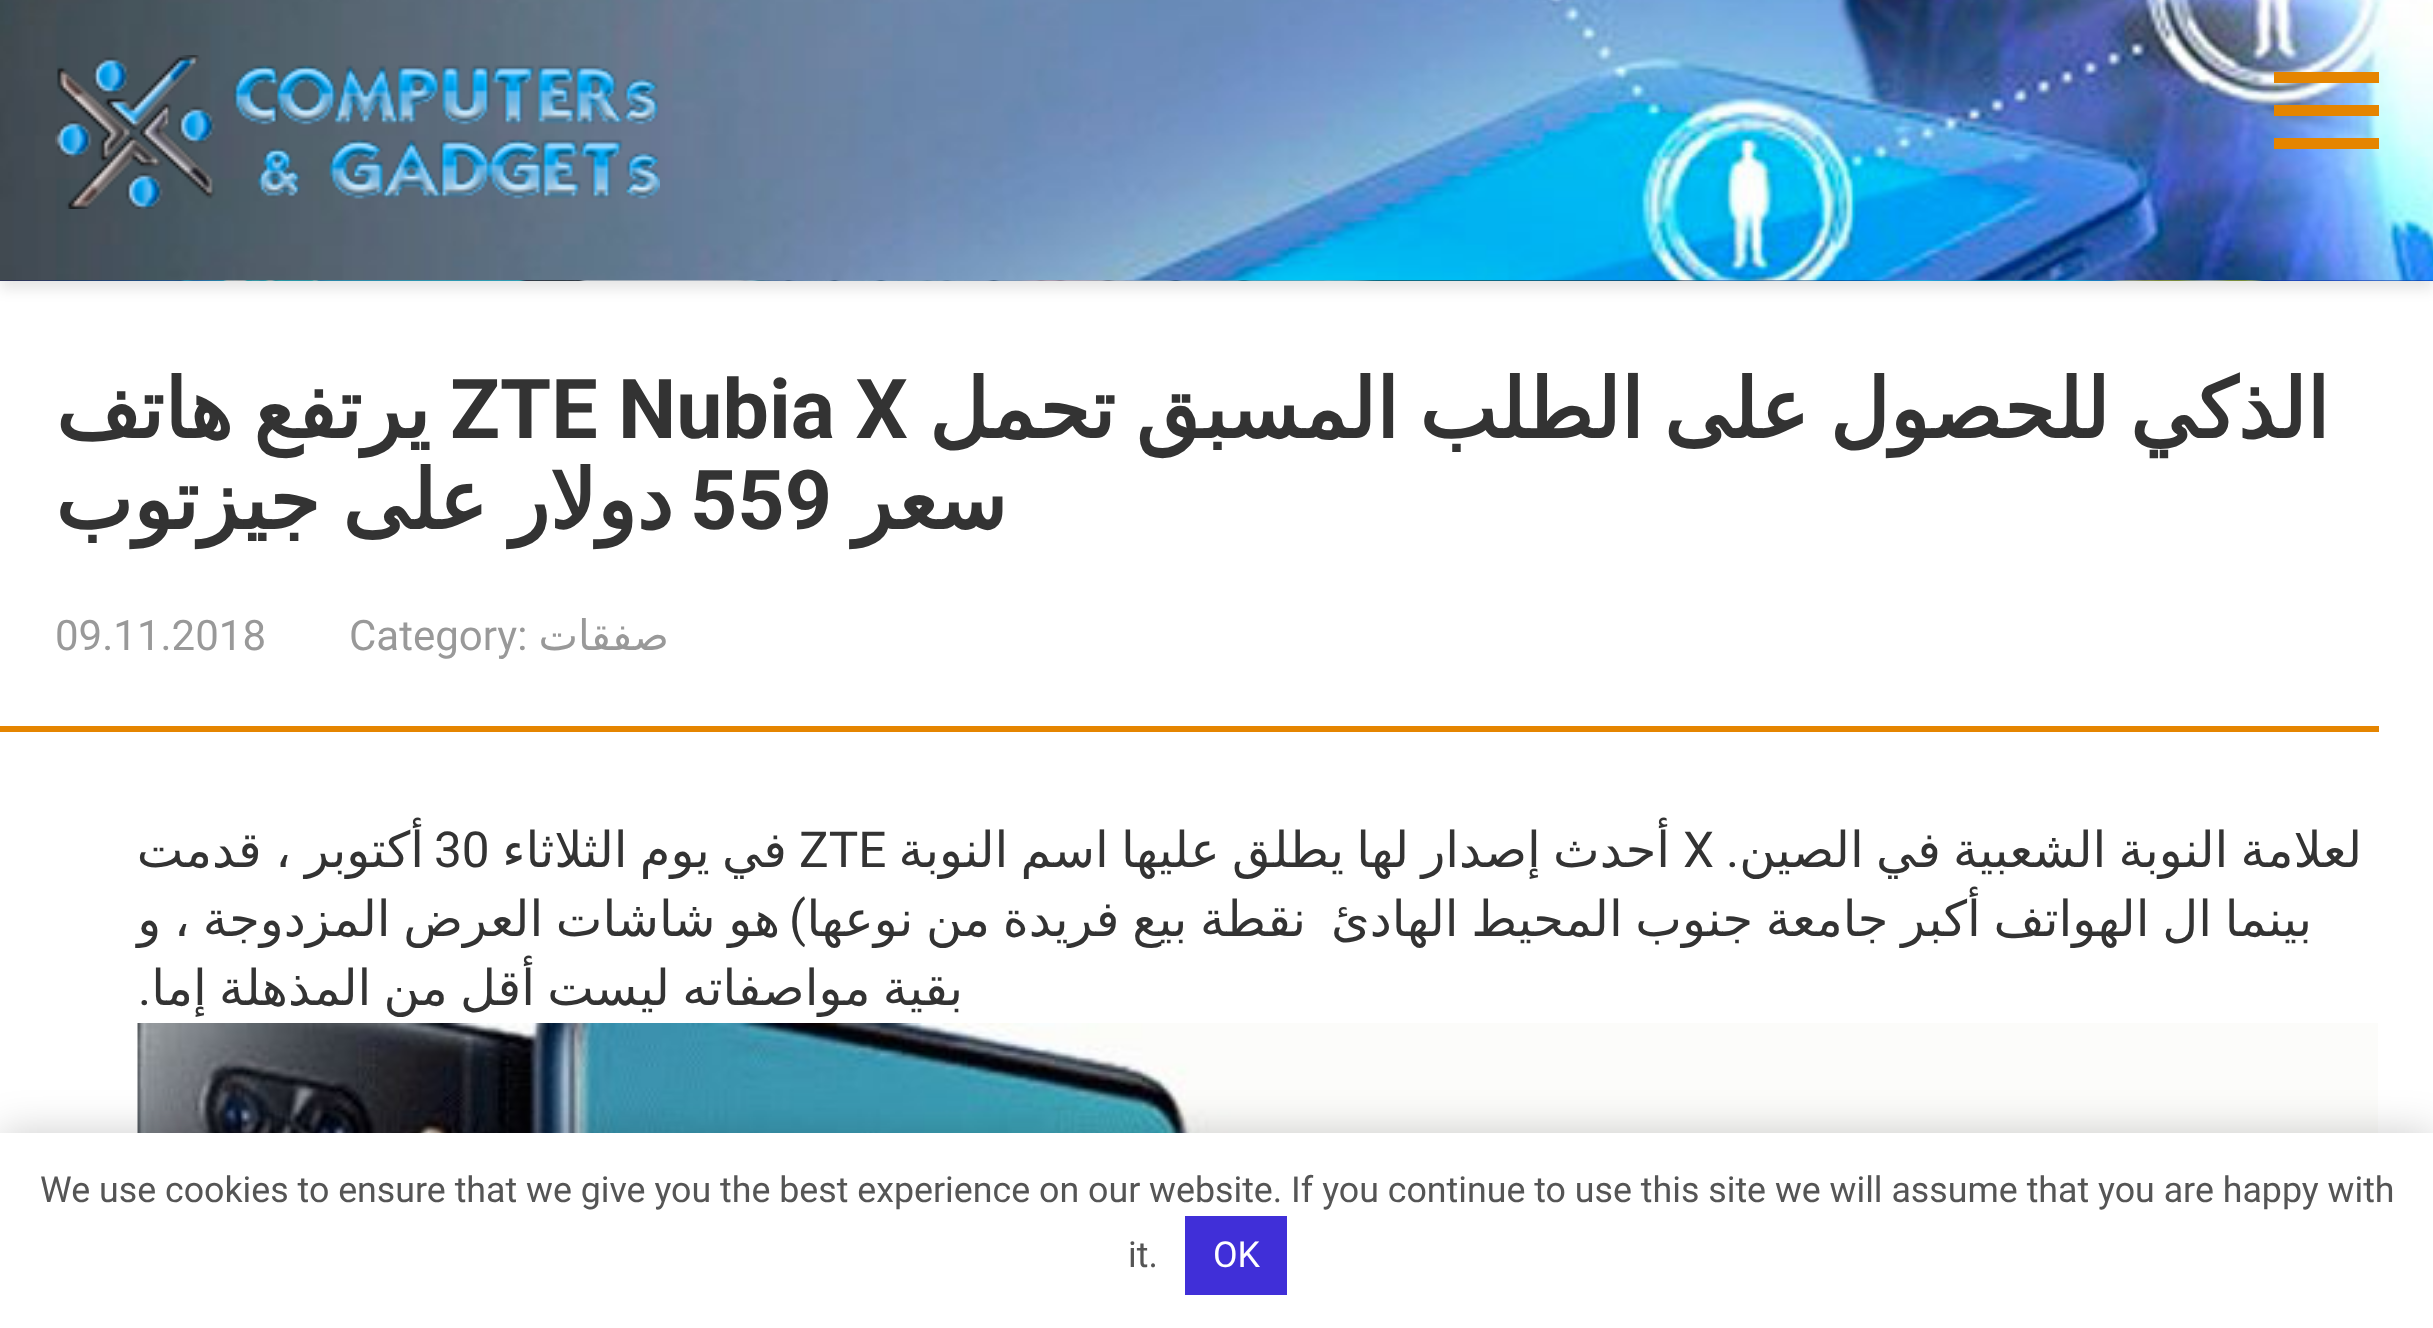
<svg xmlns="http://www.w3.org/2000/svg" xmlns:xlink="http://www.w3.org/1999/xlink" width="2433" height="1328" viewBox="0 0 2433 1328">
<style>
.cls-1{font:bold 82.5px DejaVu Sans;direction:rtl;fill:#333333}
.cls-2{font:bold 82.5px Roboto;fill:#333333}
.cls-3{font:42px DejaVu Sans;direction:rtl;fill:#999999}
.cls-4{font:42px Roboto;fill:#999999}
.cls-5{font:49.5px DejaVu Sans;direction:rtl;fill:#333333}
.cls-6{font:49.5px Roboto;direction:rtl;fill:#333333}
.cls-7{font:49.5px Roboto;fill:#333333}
.cls-8{font:35.75px Roboto;fill:#555555}
.cls-9{font:35.75px Roboto;fill:#ffffff}
</style>
<rect width="100%" height="100%" fill="#ffffff"/>
<image xlink:href="image0.png" x="0" y="280" width="2433" height="1"/>
<rect fill="#000000" fill-opacity="0.1" filter="blur(7px)" x="0" y="8" width="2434" height="281"/>
<image xlink:href="image1.png" x="0" y="0" width="2433" height="281"/>
<rect fill="#e58500" x="2274" y="72" width="105" height="11"/>
<rect fill="#e58500" x="2274" y="138" width="105" height="11"/>
<rect fill="#e58500" x="2274" y="105" width="105" height="11"/>
<image xlink:href="image2.png" x="55" y="55" width="605" height="154"/>
<rect fill="#e58500" x="0" y="726" width="2379" height="6"/>
<image xlink:href="image3.png" x="137" y="1023" width="2241" height="110"/>
<rect fill="#000000" fill-opacity="0.2" filter="blur(20.5px)" x="0" y="1133" width="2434" height="195"/>
<rect fill="#ffffff" x="0" y="1133" width="2433" height="195"/>
<rect fill="#402fd8" x="1185" y="1216" width="102" height="79"/>
<text class="cls-1" x="2329" y="438" word-spacing="-5.75">الذكي للحصول على الطلب المسبق تحمل</text>
<text class="cls-2" x="450" y="438">ZTE Nubia X</text>
<text class="cls-1" x="430" y="438" word-spacing="-5.75">يرتفع هاتف</text>
<text class="cls-1" x="1007" y="529">سعر</text>
<text class="cls-2" x="690" y="529">559</text>
<text class="cls-1" x="673" y="529" word-spacing="-4">دولار على جيزتوب</text>
<text class="cls-3" x="669" y="650">صفقات</text>
<text class="cls-4" x="349" y="650">Category:</text>
<text class="cls-4" x="55" y="650">09.11.2018</text>
<text class="cls-5" x="2362" y="867" word-spacing="-3.5">لعلامة النوبة الشعبية في الصين</text>
<text class="cls-6" x="1739" y="867">.</text>
<text class="cls-5" x="1670" y="867" word-spacing="-3.5">أحدث إصدار لها يطلق عليها اسم النوبة</text>
<text class="cls-7" x="1683" y="867">X</text>
<text class="cls-7" x="799" y="867">ZTE</text>
<text class="cls-5" x="787" y="867" word-spacing="-3.5">في يوم الثلاثاء</text>
<text class="cls-7" x="434" y="867">30</text>
<text class="cls-5" x="424" y="867" word-spacing="-2">أكتوبر ، قدمت</text>
<text class="cls-5" x="2312" y="936" word-spacing="-3">بينما ال الهواتف أكبر جامعة جنوب المحيط الهادئ</text>
<text class="cls-5" x="1306" y="936" word-spacing="-3">نقطة بيع فريدة من نوعها</text>
<text class="cls-5" x="780" y="936" word-spacing="-3">هو شاشات العرض المزدوجة ، و</text>
<text class="cls-6" x="806" y="936">)</text>
<text class="cls-5" x="963" y="1005" word-spacing="-3.5">بقية مواصفاته ليست أقل من المذهلة إما</text>
<text class="cls-6" x="151" y="1005">.</text>
<text class="cls-8" x="40" y="1202">We use cookies to ensure that we give you the best experience on our website. If you continue to use this site we will assume that you are happy with</text>
<text class="cls-9" x="1213" y="1267">OK</text>
<text class="cls-8" x="1128" y="1267">it.</text>
</svg>
